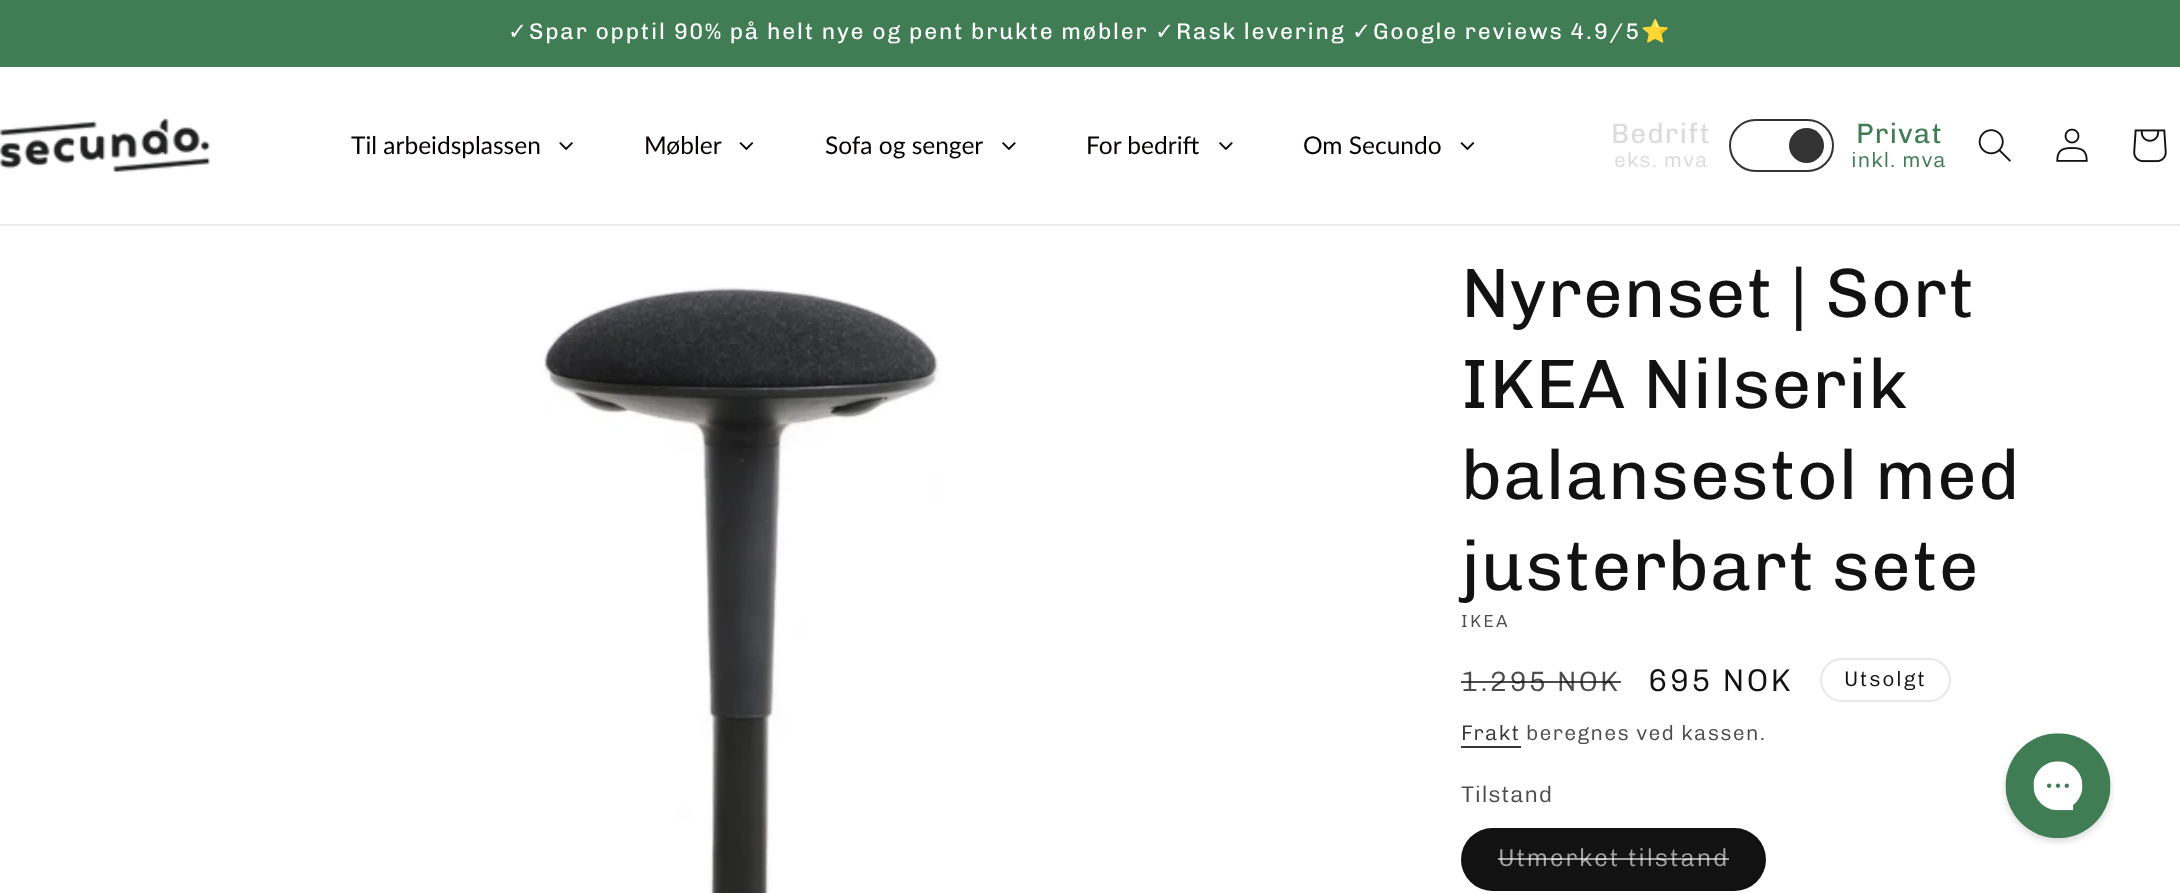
<svg xmlns="http://www.w3.org/2000/svg" xmlns:xlink="http://www.w3.org/1999/xlink" width="2180" height="893" viewBox="0 0 2180 893">
<style>
.cls-1{font:22.75px DejaVu Sans;letter-spacing:1.75px;fill:#ffffff}
.cls-2{font:22.75px Chivo;letter-spacing:1.75px;fill:#ffffff}
.cls-3{font:22.75px Noto Color Emoji;letter-spacing:1.75px;fill:#ffffff}
.cls-4{font:24.5px Lato;fill:#070000}
.cls-5{font:28px Chivo;letter-spacing:1px;fill:#dbdbdb}
.cls-6{font:300 21px Chivo;letter-spacing:1px;fill:#dbdbdb}
.cls-7{font:28px Chivo;letter-spacing:1px;fill:#407d54}
.cls-8{font:300 21px Chivo;letter-spacing:1px;fill:#407d54}
.cls-9{font:70px Chivo;letter-spacing:1px;fill:#121212}
.cls-10{font:300 17.5px Chivo;letter-spacing:2.25px;fill:#4d4d4d}
.cls-11{font:300 28px Chivo;letter-spacing:2.25px;fill:#4d4d4d}
.cls-12{font:300 31.5px Chivo;letter-spacing:2.25px;fill:#121212}
.cls-13{font:300 21px Chivo;letter-spacing:1.75px;fill:#121212}
.cls-14{font:300 21px Chivo;letter-spacing:1.25px;fill:#363636}
.cls-15{font:300 21px Chivo;letter-spacing:1.25px;fill:#4d4d4d}
.cls-16{font:300 22.75px Chivo;letter-spacing:0.75px;fill:#4d4d4d}
.cls-17{font:300 24.5px Chivo;letter-spacing:1.75px;fill:#a0a0a0}
</style>
<rect width="100%" height="100%" fill="#ffffff"/>
<rect fill="#407d54" x="0" y="0" width="2180" height="67"/>
<rect fill="#ececec" x="0" y="224" width="2180" height="2"/>
<image xlink:href="image0.png" x="0" y="118" width="210" height="55"/>
<image xlink:href="image1.png" x="559" y="142" width="14" height="8"/>
<image xlink:href="image2.png" x="739" y="142" width="15" height="8"/>
<image xlink:href="image3.png" x="1002" y="142" width="14" height="8"/>
<image xlink:href="image3.png" x="1219" y="142" width="14" height="8"/>
<image xlink:href="image2.png" x="1460" y="142" width="15" height="8"/>
<rect fill="none" stroke="#333333" stroke-width="2" x="1730" y="120" width="103" height="51" rx="25.5"/>
<circle fill="#333333" cx="1806.5" cy="145.5" r="17.5"/>
<image xlink:href="image4.png" x="1978" y="129" width="33" height="33"/>
<image xlink:href="image5.png" x="2056" y="128" width="32" height="34"/>
<image xlink:href="image6.png" x="2133" y="129" width="34" height="34"/>
<image xlink:href="image7.png" x="543" y="286" width="397" height="607"/>
<rect fill="none" stroke="#e7e7e7" stroke-width="2" x="1821" y="659" width="129" height="42" rx="21"/>
<rect fill="#363636" x="1461" y="746" width="60" height="2"/>
<rect fill="#121212" x="1461" y="828" width="305" height="63" rx="31.5"/>
<rect fill="none" stroke="#121212" stroke-opacity="0.1" stroke-width="2" x="1462" y="829" width="303" height="61" rx="30.5"/>
<image xlink:href="image8.png" x="2002" y="733" width="112" height="112"/>
<text class="cls-1" x="508" y="39">✓</text>
<text class="cls-2" x="529" y="39" word-spacing="-0.1">Spar opptil 90% på helt nye og pent brukte møbler</text>
<text class="cls-1" x="1155" y="39">✓</text>
<text class="cls-2" x="1176" y="39" word-spacing="-0.1">Rask levering</text>
<text class="cls-1" x="1352" y="39">✓</text>
<text class="cls-2" x="1373" y="39" word-spacing="-0.1">Google reviews 4.9/5</text>
<text class="cls-3" x="1641" y="39">⭐️</text>
<text class="cls-4" x="351" y="154">Til arbeidsplassen</text>
<text class="cls-4" x="644" y="154">Møbler</text>
<text class="cls-4" x="825" y="154">Sofa og senger</text>
<text class="cls-4" x="1086" y="154">For bedrift</text>
<text class="cls-4" x="1303" y="154">Om Secundo</text>
<text class="cls-5" x="1611" y="143">Bedrift</text>
<text class="cls-6" x="1614" y="167">eks. mva</text>
<text class="cls-7" x="1856" y="143">Privat</text>
<text class="cls-8" x="1851" y="167">inkl. mva</text>
<text class="cls-9"><tspan x="1461" y="317">Nyrenset | Sort</tspan><tspan x="1461" y="408">IKEA Nilserik</tspan><tspan x="1461" y="499">balansestol med</tspan><tspan x="1461" y="590">justerbart sete</tspan></text>
<text class="cls-10" x="1461" y="627">IKEA</text>
<text class="cls-11" x="1461" y="691">1.295 NOK</text>
<rect fill="#121212" fill-opacity="0.75" x="1461" y="681" width="160" height="2"/>
<text class="cls-12" x="1648" y="691">695 NOK</text>
<text class="cls-13" x="1844" y="686">Utsolgt</text>
<text class="cls-14" x="1461" y="740">Frakt</text>
<text class="cls-15" x="1526" y="740">beregnes ved kassen.</text>
<text class="cls-16" x="1461" y="802">Tilstand</text>
<text class="cls-17" x="1498" y="866">Utmerket tilstand</text>
<rect fill="#ffffff" fill-opacity="0.6" x="1498" y="858" width="231" height="2"/>
</svg>
